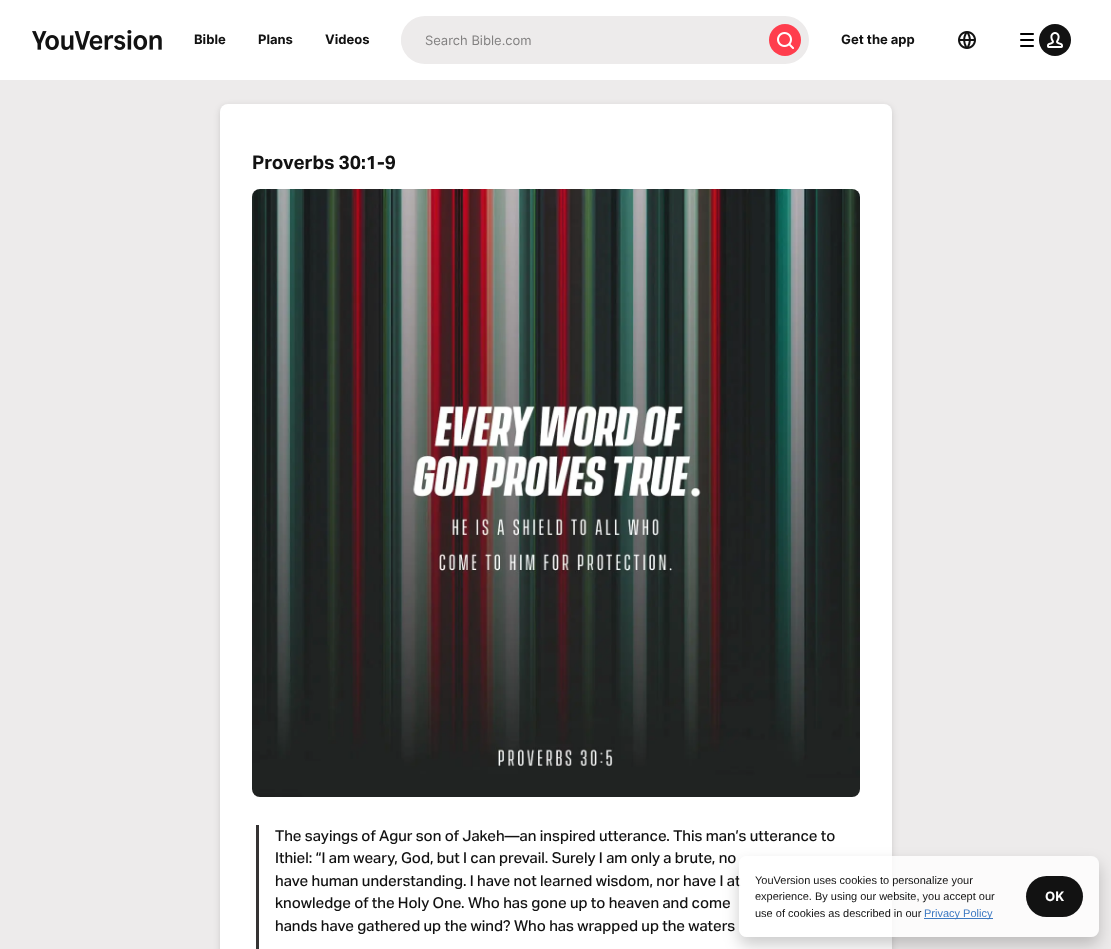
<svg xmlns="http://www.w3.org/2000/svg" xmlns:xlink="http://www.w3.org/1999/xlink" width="1111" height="949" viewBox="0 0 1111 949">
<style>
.cls-1{font:bold 13px Inter;fill:#121212}
.cls-2{font:13px Inter;fill:#828080}
.cls-3{font:bold 19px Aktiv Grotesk;fill:#121212}
.cls-4{font:500 15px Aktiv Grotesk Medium;fill:#121212}
.cls-5{font:11px Liberation Sans;fill:#121212}
.cls-6{font:11px Liberation Sans;fill:#3d79c2}
.cls-7{font:bold 13px Inter;fill:#ffffff}
</style>
<defs>
<clipPath id="clip1"><path d="M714 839H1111V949H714ZM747 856H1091C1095.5 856 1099 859.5 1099 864V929C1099 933.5 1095.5 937 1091 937H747C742.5 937 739 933.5 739 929V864C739 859.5 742.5 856 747 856Z" clip-rule="evenodd"/></clipPath>
</defs>
<rect width="100%" height="100%" fill="#ffffff"/>
<image xlink:href="image0.png" x="32" y="30" width="130" height="20"/>
<rect fill="#edebeb" x="401" y="16" width="408" height="48" rx="24"/>
<rect fill="#edebeb" x="401" y="24" width="360" height="32" rx="16"/>
<circle fill="#ff3d4d" cx="785" cy="40" r="16"/>
<image xlink:href="image1.png" x="777" y="32" width="17" height="17"/>
<image xlink:href="image2.png" x="958" y="31" width="18" height="18"/>
<image xlink:href="image3.png" x="1020" y="33" width="14" height="14"/>
<circle fill="#121212" cx="1055" cy="40" r="16"/>
<image xlink:href="image4.png" x="1047" y="32" width="16" height="16"/>
<rect fill="#edebeb" x="0" y="80" width="1111" height="869"/>
<rect fill="#121212" fill-opacity="0.15" filter="blur(3px)" x="220" y="106" width="672" height="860" rx="8"/>
<rect fill="#ffffff" x="220" y="104" width="672" height="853" rx="8"/>
<image xlink:href="image5.png" x="252" y="189" width="608" height="608"/>
<rect fill="#353333" x="256" y="825" width="3" height="124"/>
<g clip-path="url(#clip1)">
<rect fill="#000000" fill-opacity="0.2" filter="blur(8px)" x="739" y="864" width="360" height="81" rx="8"/>
</g>
<text class="cls-1" x="194" y="44">Bible</text>
<text class="cls-1" x="258" y="44">Plans</text>
<text class="cls-1" x="325" y="44">Videos</text>
<text class="cls-2" x="425" y="45">Search Bible.com</text>
<text class="cls-1" x="841" y="44">Get the app</text>
<text class="cls-3" x="252" y="169">Proverbs 30:1-9</text>
<text class="cls-4"><tspan x="275" y="841">The sayings of Agur son of Jakeh—an inspired utterance. This man’s utterance to</tspan><tspan x="275" y="863">Ithiel: “I am weary, God, but I can prevail. Surely I am only a brute, no</tspan><tspan x="275" y="886">have human understanding. I have not learned wisdom, nor have I at</tspan><tspan x="275" y="908">knowledge of the Holy One. Who has gone up to heaven and come</tspan><tspan x="275" y="931">hands have gathered up the wind? Who has wrapped up the waters</tspan></text>
<rect fill="#ffffff" fill-opacity="0.8" x="739" y="856" width="360" height="81" rx="8"/>
<text class="cls-5"><tspan x="755" y="884">YouVersion uses cookies to personalize your</tspan><tspan x="755" y="900">experience. By using our website, you accept our</tspan><tspan x="755" y="917">use of cookies as described in our</tspan></text>
<rect fill="#3d79c2" x="924" y="918" width="69" height="1"/>
<text class="cls-6" x="924" y="917">Privacy Policy</text>
<rect fill="#121212" x="1026" y="876" width="57" height="41" rx="20.5"/>
<text class="cls-7" x="1045" y="901">OK</text>
</svg>
